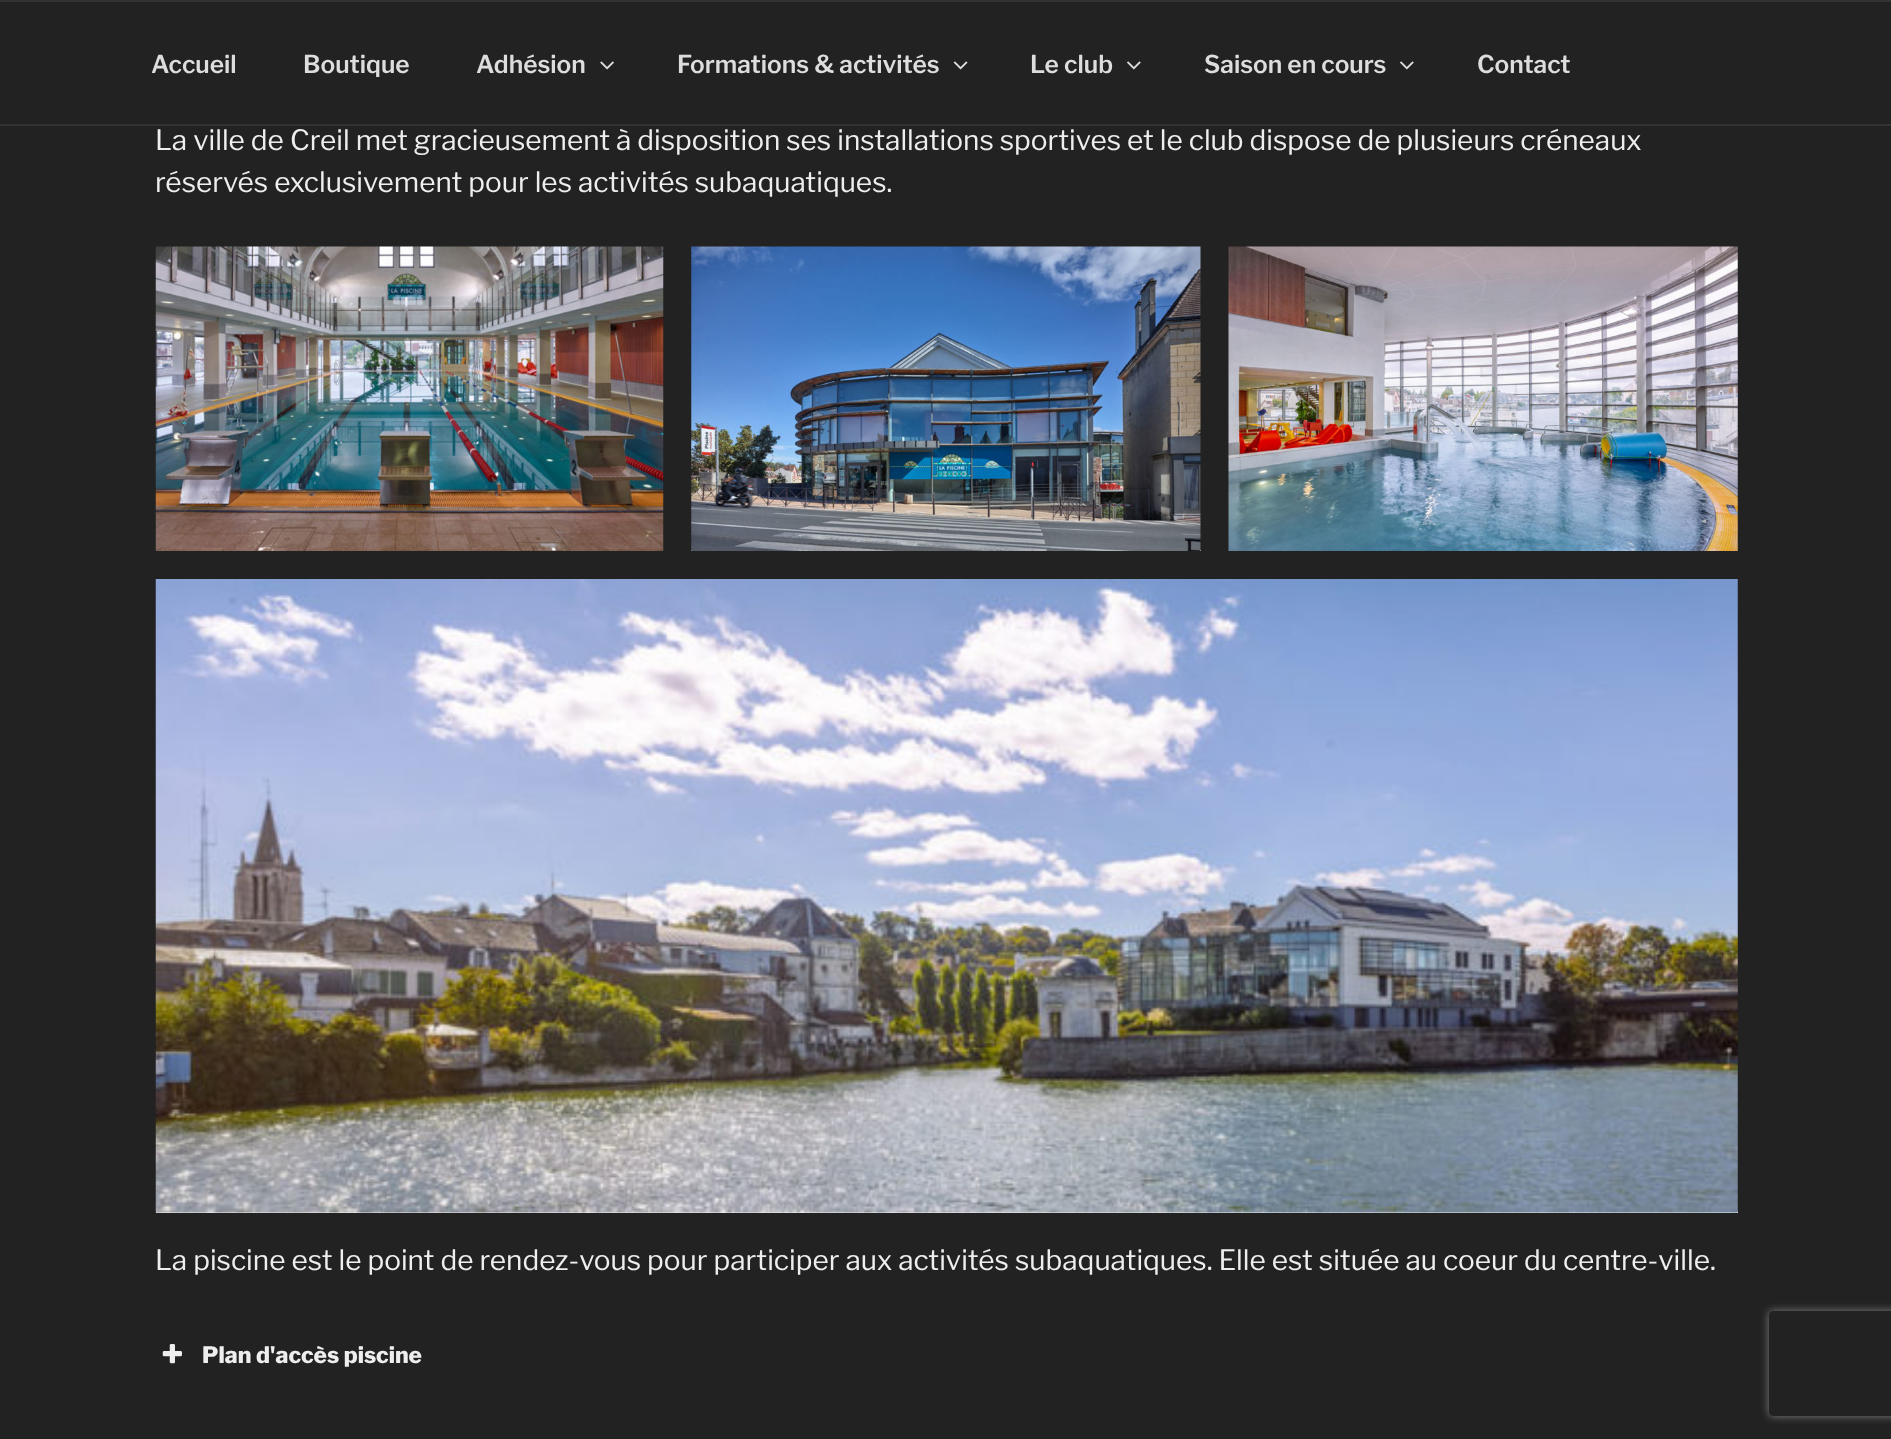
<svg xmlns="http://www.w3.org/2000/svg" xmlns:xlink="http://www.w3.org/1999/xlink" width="1891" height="1439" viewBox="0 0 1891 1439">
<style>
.cls-1{font:100 24.5px 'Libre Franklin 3';fill:#dddddd}
.cls-2{font:100 28px Libre Franklin;fill:#eeeeee}
.cls-3{font:100 22.75px 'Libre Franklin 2';fill:#eeeeee}
</style>
<defs>
<clipPath id="clip1"><path d="M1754 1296H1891V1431H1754ZM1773 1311H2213C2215 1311 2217 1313 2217 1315V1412C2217 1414 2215 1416 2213 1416H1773C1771 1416 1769 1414 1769 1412V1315C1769 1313 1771 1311 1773 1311Z" clip-rule="evenodd"/></clipPath>
</defs>
<rect width="100%" height="100%" fill="#222222"/>
<rect fill="#333333" x="0" y="0" width="1891" height="2"/>
<rect fill="#333333" x="0" y="124" width="1891" height="2"/>
<image xlink:href="image0.png" x="600" y="61" width="14" height="9"/>
<image xlink:href="image1.png" x="953" y="61" width="15" height="9"/>
<image xlink:href="image2.png" x="1127" y="61" width="14" height="9"/>
<image xlink:href="image2.png" x="1400" y="61" width="14" height="9"/>
<image xlink:href="image3.png" x="155" y="246" width="509" height="305"/>
<rect fill="#f0f0f0" x="691" y="550" width="510" height="1"/>
<image xlink:href="image4.png" x="691" y="246" width="510" height="305"/>
<image xlink:href="image5.png" x="1228" y="246" width="510" height="305"/>
<rect fill="#f0f0f0" x="156" y="1211" width="1582" height="2"/>
<image xlink:href="image6.png" x="155" y="579" width="1583" height="634"/>
<image xlink:href="image7.png" x="162" y="1344" width="20" height="20"/>
<g clip-path="url(#clip1)">
<rect fill="#808080" filter="blur(4.5px)" x="1769" y="1311" width="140" height="105" rx="4"/>
</g>
<text class="cls-1" x="151" y="73">Accueil</text>
<text class="cls-1" x="303" y="73">Boutique</text>
<text class="cls-1" x="476" y="73">Adhésion</text>
<text class="cls-1" x="677" y="73">Formations &amp; activités</text>
<text class="cls-1" x="1030" y="73">Le club</text>
<text class="cls-1" x="1204" y="73">Saison en cours</text>
<text class="cls-1" x="1477" y="73">Contact</text>
<text class="cls-2"><tspan x="155" y="150">La ville de Creil met gracieusement à disposition ses installations sportives et le club dispose de plusieurs créneaux</tspan><tspan x="155" y="192">réservés exclusivement pour les activités subaquatiques.</tspan></text>
<text class="cls-2" x="155" y="1270">La piscine est le point de rendez-vous pour participer aux activités subaquatiques. Elle est située au coeur du centre-ville.</text>
<text class="cls-3" x="202" y="1363">Plan d'accès piscine</text>
</svg>
